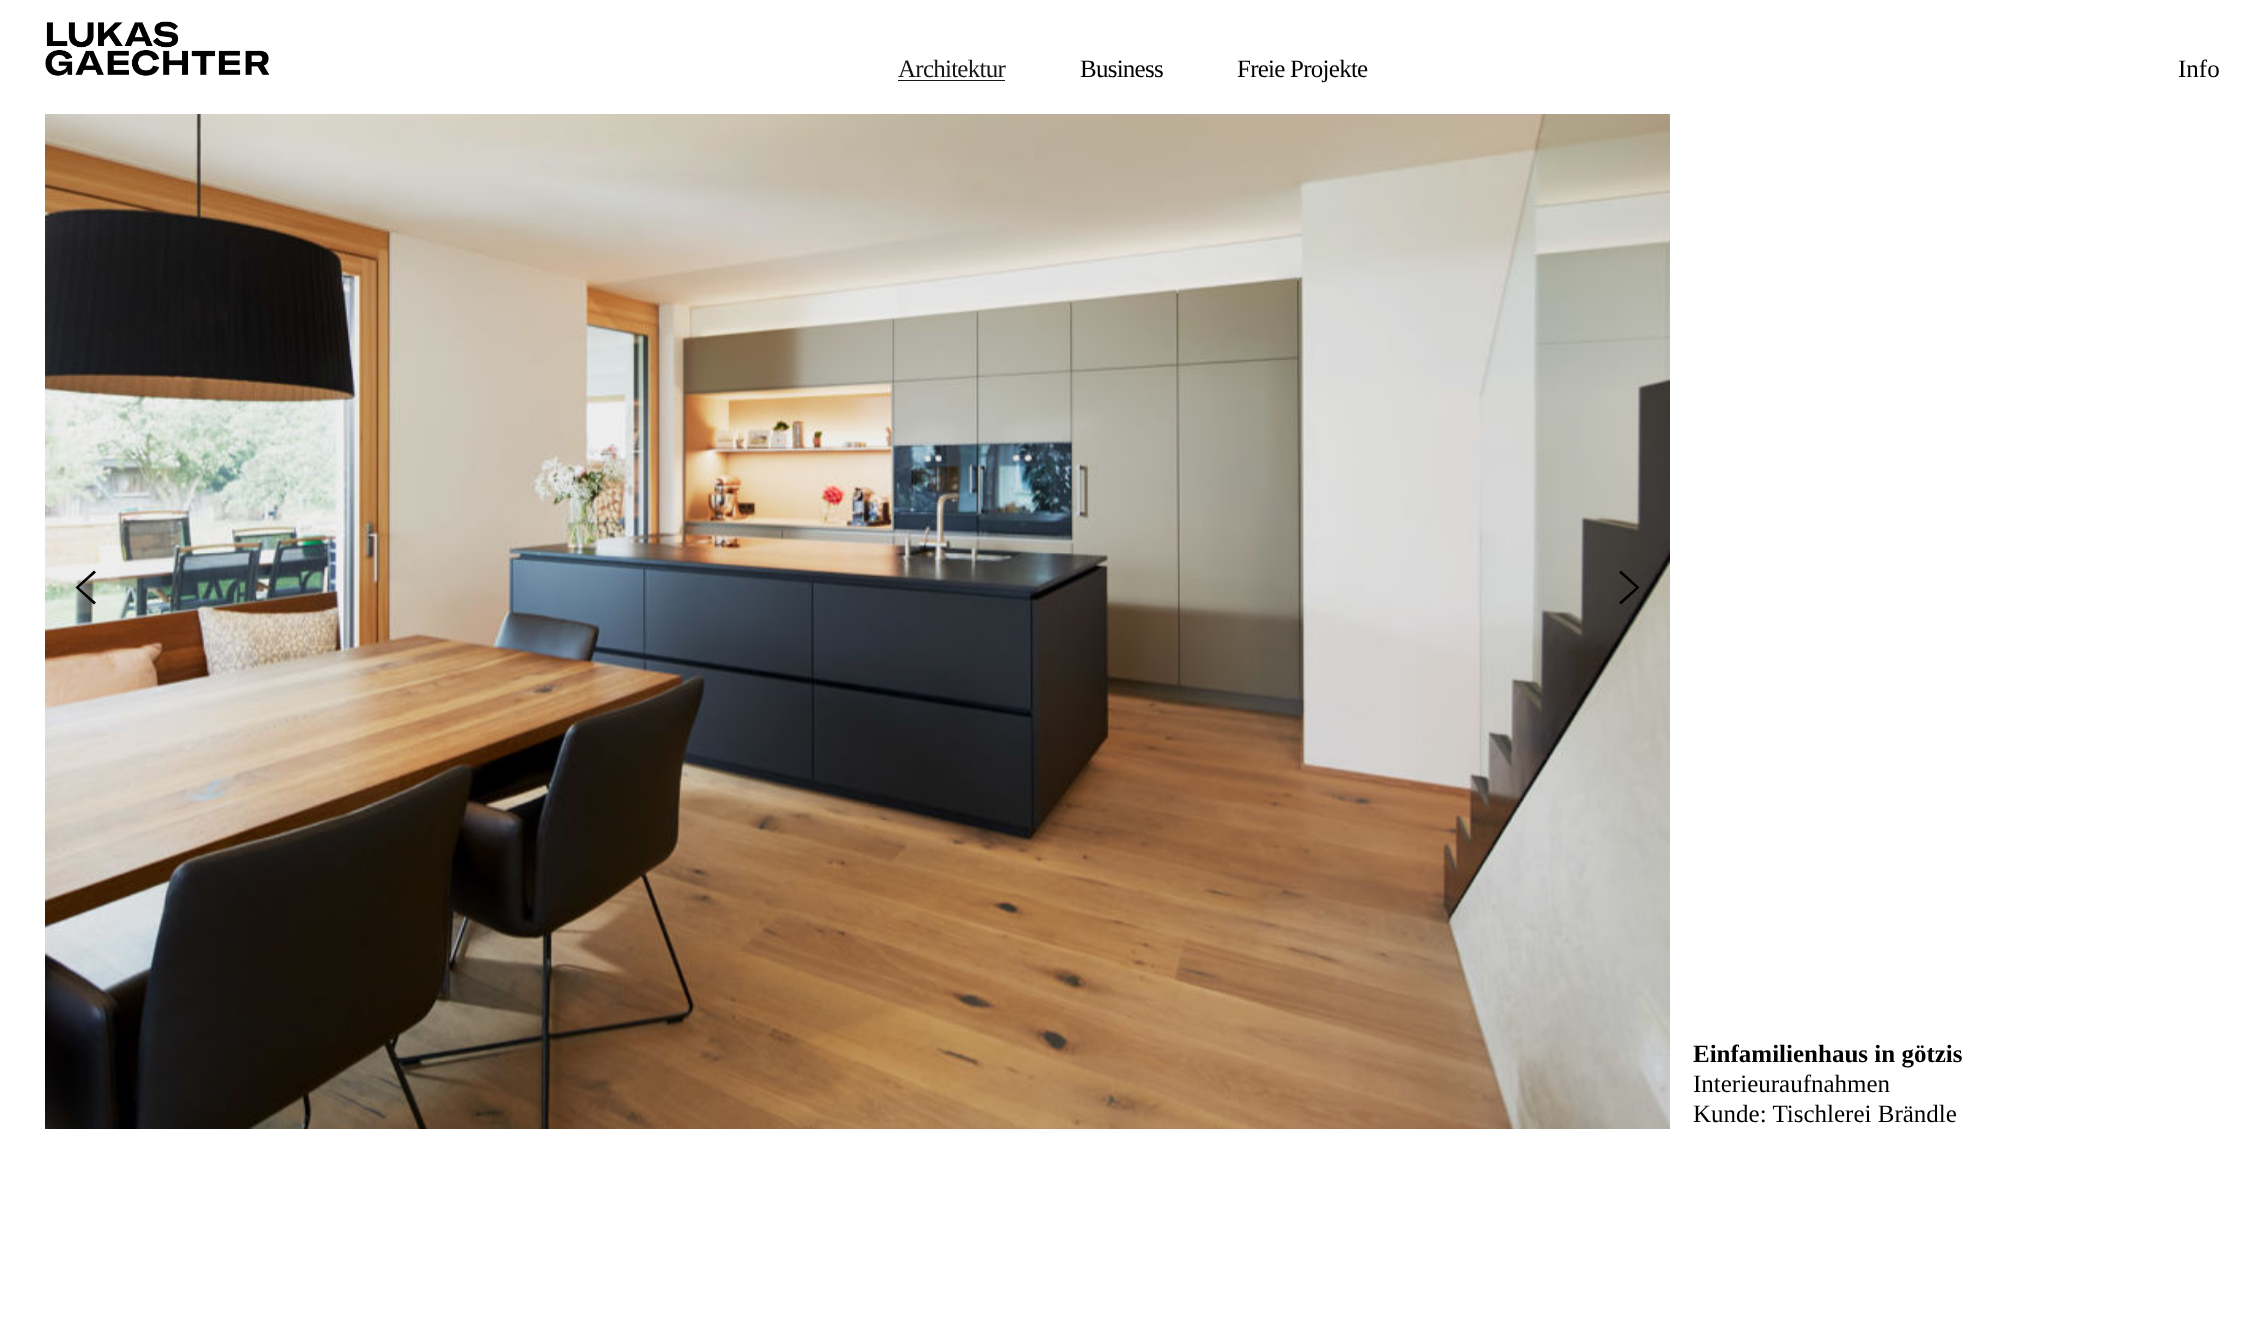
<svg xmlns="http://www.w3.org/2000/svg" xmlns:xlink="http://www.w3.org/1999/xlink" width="2264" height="1322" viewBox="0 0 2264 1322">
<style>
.cls-1{font:25px Liberation Serif;letter-spacing:-0.75px;fill:#161616}
.cls-2{font:25px Liberation Serif;letter-spacing:-0.75px;fill:#000000}
.cls-3{font:25px Liberation Serif;fill:#000000}
.cls-4{font:bold 25px Liberation Serif;fill:#000000}
</style>
<rect width="100%" height="100%" fill="#ffffff"/>
<image xlink:href="image0.png" x="45" y="21" width="225" height="55"/>
<rect fill="#161616" x="898" y="80" width="107" height="1"/>
<image xlink:href="image1.png" x="45" y="114" width="1625" height="1015"/>
<path fill="#000000" d="M75.5 587.5L94 604.5L96 602.5L79 587.5L96 572.5L94 570.5Z"/>
<path fill="#000000" d="M1639.5 587.5L1621 570.5L1619 572.5L1636 587.5L1619 602.5L1621 604.5Z"/>
<text class="cls-1" x="898" y="77">Architektur</text>
<text class="cls-2" x="1080" y="77">Business</text>
<text class="cls-2" x="1237" y="77">Freie Projekte</text>
<text class="cls-3" x="2178" y="77">Info</text>
<text class="cls-4" x="1693" y="1062">Einfamilienhaus in götzis</text>
<text class="cls-3"><tspan x="1693" y="1092">Interieuraufnahmen</tspan><tspan x="1693" y="1122">Kunde: Tischlerei Brändle</tspan></text>
</svg>
